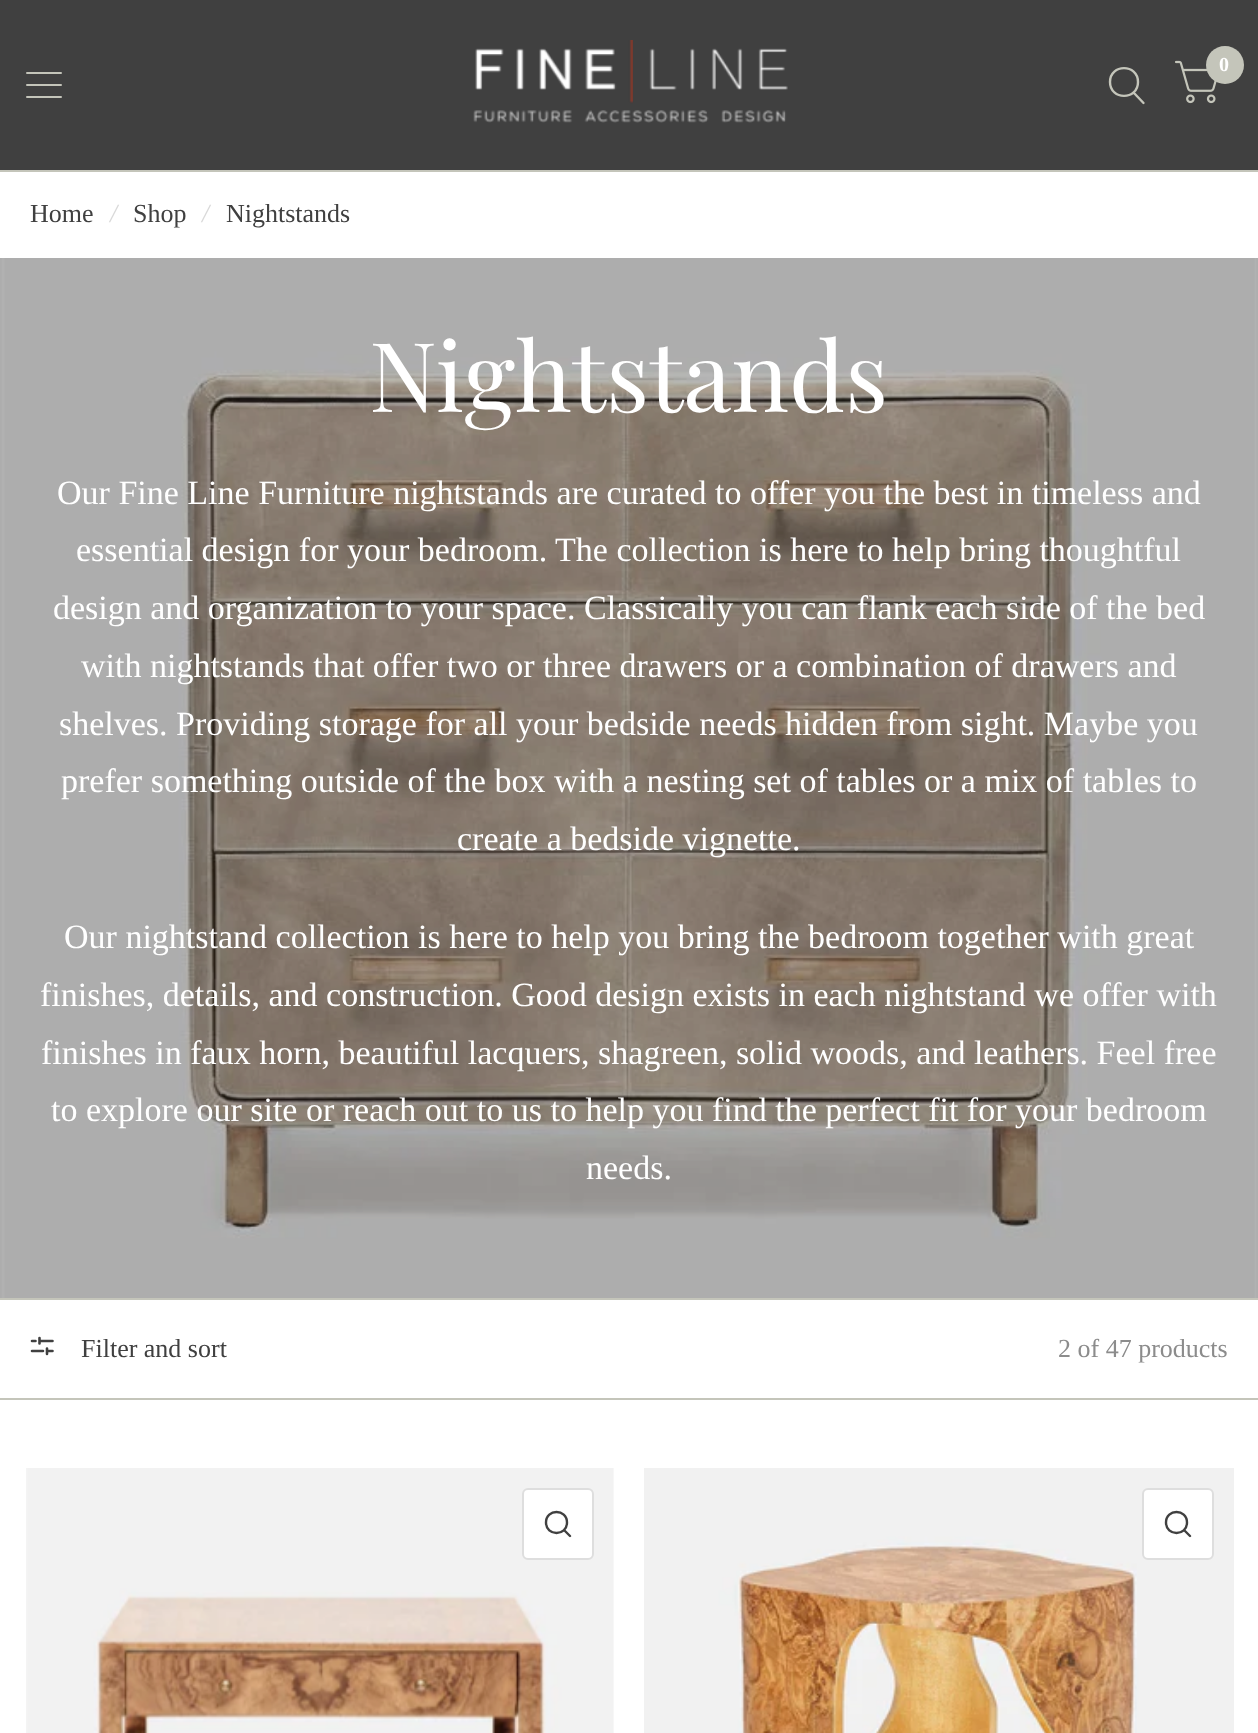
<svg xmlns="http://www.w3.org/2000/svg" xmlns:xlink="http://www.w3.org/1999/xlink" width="1258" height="1733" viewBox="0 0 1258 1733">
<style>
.cls-1{font:bold 20px Liberation Serif;fill:#ffffff}
.cls-2{font:26px Liberation Serif;fill:#404040}
.cls-3{font:italic 26px Liberation Serif;fill:#d9d9d9}
.cls-4{font:96.5px Playfair Display;fill:#ffffff}
.cls-5{font:34px Liberation Serif;fill:#ffffff}
.cls-6{font:26px Liberation Serif;fill:#8c8c8c}
</style>
<rect width="100%" height="100%" fill="#ffffff"/>
<rect fill="#404040" x="0" y="0" width="1258" height="170"/>
<rect fill="#c4c5ba" x="0" y="170" width="1258" height="2"/>
<image xlink:href="image0.png" x="473" y="40" width="315" height="83"/>
<image xlink:href="image1.png" x="1175" y="60" width="42" height="44"/>
<circle fill="#c4c5ba" cx="1225" cy="65" r="19"/>
<path fill="none" stroke="#c4c5ba" stroke-width="2.4" stroke-linecap="round" stroke-linejoin="round" d="M1134 93L1143.5 103M1138 82C1138 100.5 1110 100.5 1110 82C1110 63.5 1138 63.5 1138 82Z"/>
<rect fill="#c4c5ba" x="26" y="72" width="36" height="2" rx="1"/>
<rect fill="#c4c5ba" x="26" y="84" width="36" height="2" rx="1"/>
<rect fill="#c4c5ba" x="26" y="96" width="36" height="2" rx="1"/>
<image xlink:href="image2.png" x="0" y="258" width="1258" height="1040"/>
<rect fill="#c4c5ba" x="0" y="1298" width="1258" height="2"/>
<rect fill="#c4c5ba" x="0" y="1398" width="1258" height="2"/>
<path fill="none" stroke="#404040" stroke-width="2.6" stroke-linecap="round" stroke-linejoin="round" d="M43 1351H32M52.5 1351H47M35.5 1341H32M52.5 1341H39.5M39.5 1338V1343.5M47 1354V1348.5"/>
<image xlink:href="image3.png" x="26" y="1468" width="588" height="265"/>
<rect fill="#ffffff" stroke="#dedede" stroke-width="2" x="523" y="1489" width="70" height="70" rx="5"/>
<path fill="none" stroke="#404040" stroke-width="2.4" stroke-linecap="round" stroke-linejoin="round" d="M564 1530L570 1536M567 1522.5C567 1536.5 546 1536.5 546 1522.5C546 1508.5 567 1508.5 567 1522.5Z"/>
<image xlink:href="image4.png" x="644" y="1468" width="590" height="265"/>
<rect fill="#ffffff" stroke="#dedede" stroke-width="2" x="1143" y="1489" width="70" height="70" rx="5"/>
<path fill="none" stroke="#404040" stroke-width="2.4" stroke-linecap="round" stroke-linejoin="round" d="M1184 1530L1190 1536M1187 1522.5C1187 1536.5 1166 1536.5 1166 1522.5C1166 1508.5 1187 1508.5 1187 1522.5Z"/>
<text class="cls-1" x="1219" y="71">0</text>
<text class="cls-2" x="30" y="222">Home</text>
<text class="cls-3" x="110" y="222">/</text>
<text class="cls-2" x="133" y="222">Shop</text>
<text class="cls-3" x="202" y="222">/</text>
<text class="cls-2" x="226" y="222">Nightstands</text>
<text class="cls-4" x="369" y="412">Nightstands</text>
<text class="cls-5" x="57" y="504">Our Fine Line Furniture nightstands are curated to offer you the best in timeless and</text>
<text class="cls-5" x="76" y="561">essential design for your bedroom. The collection is here to help bring thoughtful</text>
<text class="cls-5" x="53" y="619">design and organization to your space. Classically you can flank each side of the bed</text>
<text class="cls-5" x="81" y="677">with nightstands that offer two or three drawers or a combination of drawers and</text>
<text class="cls-5" x="59" y="735">shelves. Providing storage for all your bedside needs hidden from sight. Maybe you</text>
<text class="cls-5" x="61" y="792">prefer something outside of the box with a nesting set of tables or a mix of tables to</text>
<text class="cls-5" x="457" y="850">create a bedside vignette.</text>
<text class="cls-5" x="64" y="948">Our nightstand collection is here to help you bring the bedroom together with great</text>
<text class="cls-5" x="40" y="1006">finishes, details, and construction. Good design exists in each nightstand we offer with</text>
<text class="cls-5" x="41" y="1064">finishes in faux horn, beautiful lacquers, shagreen, solid woods, and leathers. Feel free</text>
<text class="cls-5" x="51" y="1121">to explore our site or reach out to us to help you find the perfect fit for your bedroom</text>
<text class="cls-5" x="586" y="1179">needs.</text>
<text class="cls-2" x="81" y="1357">Filter and sort</text>
<text class="cls-6" x="1058" y="1357">2 of 47 products</text>
</svg>
